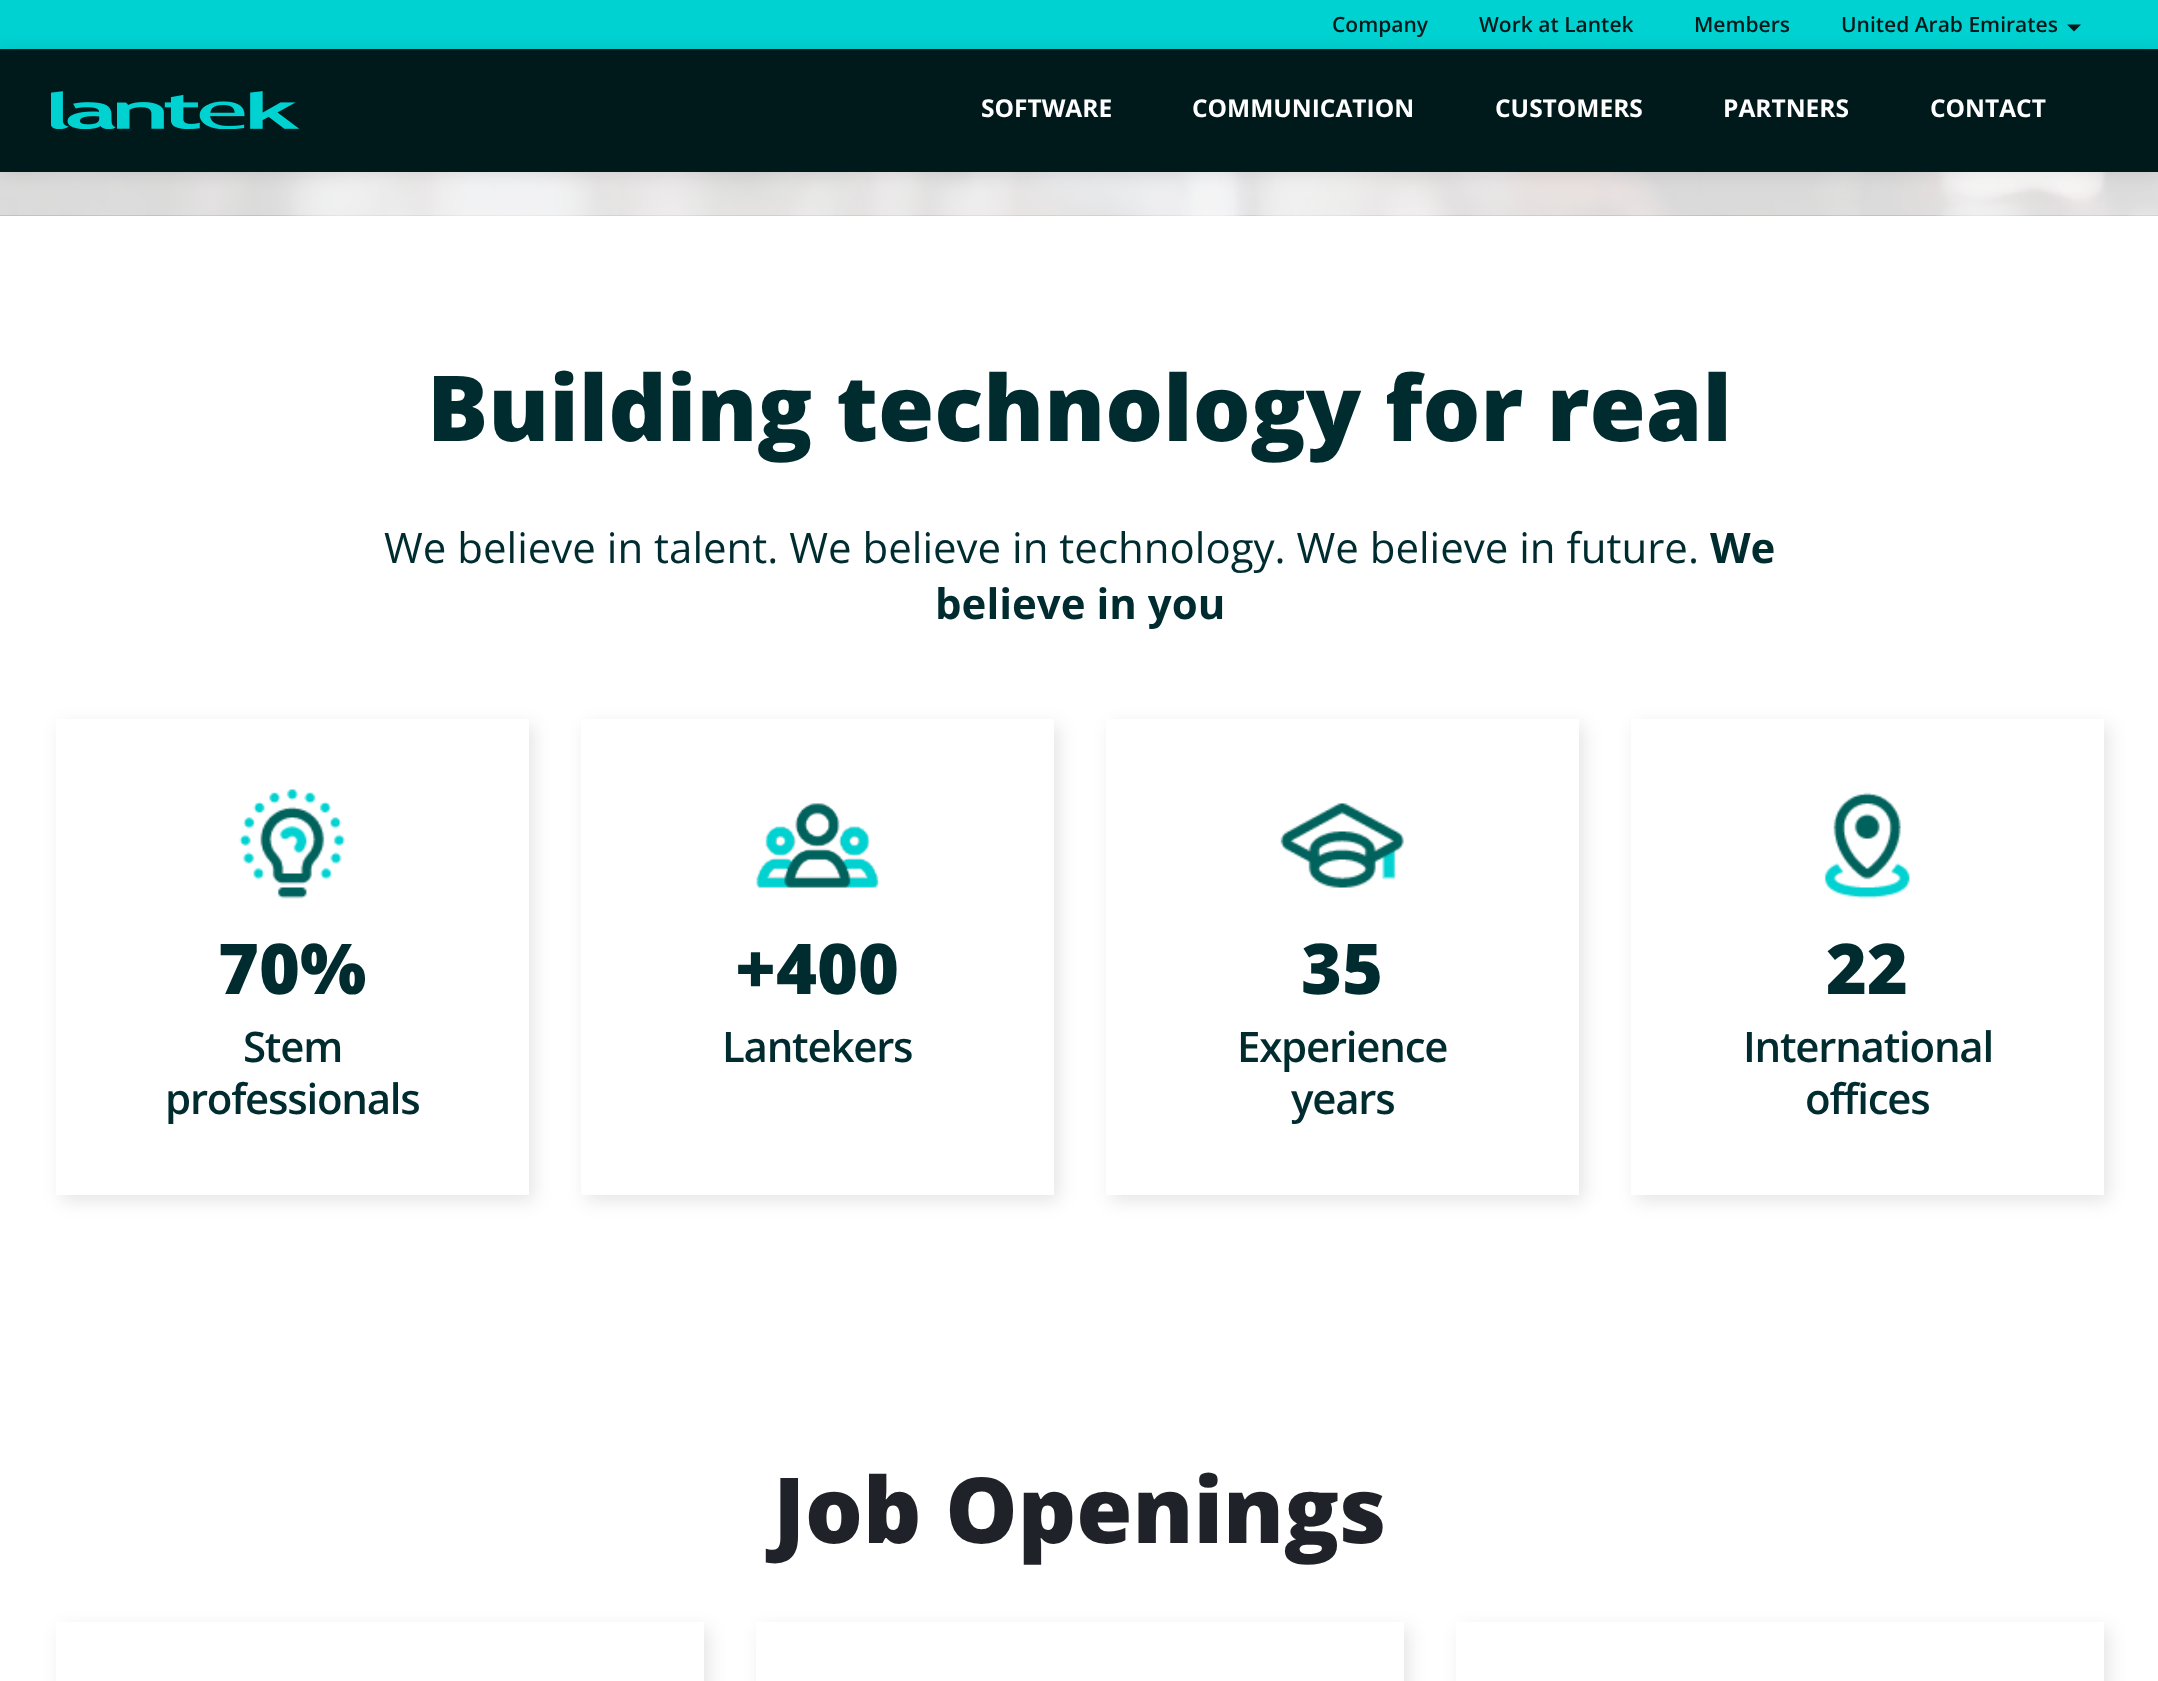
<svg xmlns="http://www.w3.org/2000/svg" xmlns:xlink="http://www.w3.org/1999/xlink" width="2158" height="1681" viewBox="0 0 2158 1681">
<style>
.cls-1{font:600 21px Open Sans;fill:#001a1c}
.cls-2{font:bold 24.5px Open Sans;fill:#ffffff}
.cls-3{font:800 91px Open Sans;fill:#002c30}
.cls-4{font:42px Open Sans;fill:#002c30}
.cls-5{font:bold 42px Open Sans;fill:#002c30}
.cls-6{font:800 70px Open Sans;fill:#002c30}
.cls-7{font:600 42px Open Sans;letter-spacing:-1.25px;fill:#002c30}
.cls-8{font:800 91px Open Sans;fill:#1f2228}
</style>
<rect width="100%" height="100%" fill="#ffffff"/>
<rect fill="#00d1d1" x="0" y="0" width="2158" height="49"/>
<image xlink:href="image1.png" x="0" y="172" width="2158" height="44"/>
<rect fill="#000000" fill-opacity="0.1" filter="blur(9px)" x="0" y="51" width="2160" height="122"/>
<path fill="#001a1c" d="M2067 24.5H2081L2074 31.5Z"/>
<rect fill="#001a1c" x="0" y="49" width="2158" height="123"/>
<image xlink:href="image0.png" x="51" y="91" width="248" height="38"/>
<rect fill="#000000" fill-opacity="0.1" filter="blur(9px)" x="61" y="725" width="473" height="476"/>
<rect fill="#ffffff" x="56" y="719" width="473" height="476"/>
<image xlink:href="image2.png" x="239" y="789" width="107" height="110"/>
<rect fill="#000000" fill-opacity="0.1" filter="blur(9px)" x="586" y="725" width="473" height="476"/>
<rect fill="#ffffff" x="581" y="719" width="473" height="476"/>
<image xlink:href="image3.png" x="756" y="803" width="123" height="85"/>
<rect fill="#000000" fill-opacity="0.1" filter="blur(9px)" x="1111" y="725" width="473" height="476"/>
<rect fill="#ffffff" x="1106" y="719" width="473" height="476"/>
<image xlink:href="image4.png" x="1280" y="803" width="124" height="85"/>
<rect fill="#000000" fill-opacity="0.1" filter="blur(9px)" x="1636" y="725" width="473" height="476"/>
<rect fill="#ffffff" x="1631" y="719" width="473" height="476"/>
<image xlink:href="image5.png" x="1824" y="792" width="86" height="107"/>
<rect fill="#000000" fill-opacity="0.1" filter="blur(9px)" x="61" y="1628" width="648" height="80"/>
<rect fill="#ffffff" x="56" y="1622" width="648" height="59"/>
<rect fill="#000000" fill-opacity="0.1" filter="blur(9px)" x="761" y="1628" width="648" height="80"/>
<rect fill="#ffffff" x="756" y="1622" width="648" height="59"/>
<rect fill="#000000" fill-opacity="0.1" filter="blur(9px)" x="1461" y="1628" width="648" height="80"/>
<rect fill="#ffffff" x="1456" y="1622" width="648" height="59"/>
<text class="cls-1" x="1332" y="32">Company</text>
<text class="cls-1" x="1479" y="32">Work at Lantek</text>
<text class="cls-1" x="1694" y="32">Members</text>
<text class="cls-1" x="1841" y="32">United Arab Emirates</text>
<text class="cls-2" x="981" y="117">SOFTWARE</text>
<text class="cls-2" x="1192" y="117">COMMUNICATION</text>
<text class="cls-2" x="1495" y="117">CUSTOMERS</text>
<text class="cls-2" x="1723" y="117">PARTNERS</text>
<text class="cls-2" x="1930" y="117">CONTACT</text>
<text class="cls-3" x="427" y="441">Building technology for real</text>
<text class="cls-4" x="384" y="563">We believe in talent. We believe in technology. We believe in future.</text>
<text class="cls-5" x="1710" y="563">We</text>
<text class="cls-5" x="935" y="619">believe in you</text>
<text class="cls-6" x="218" y="994">70%</text>
<text class="cls-7" x="243" y="1062">Stem</text>
<text class="cls-7" x="165" y="1114">professionals</text>
<text class="cls-6" x="735" y="994">+400</text>
<text class="cls-7" x="722" y="1062">Lantekers</text>
<text class="cls-6" x="1301" y="994">35</text>
<text class="cls-7" x="1237" y="1062">Experience</text>
<text class="cls-7" x="1291" y="1114">years</text>
<text class="cls-6" x="1826" y="994">22</text>
<text class="cls-7" x="1743" y="1062">International</text>
<text class="cls-7" x="1805" y="1114">offices</text>
<text class="cls-8" x="773" y="1543">Job Openings</text>
</svg>
